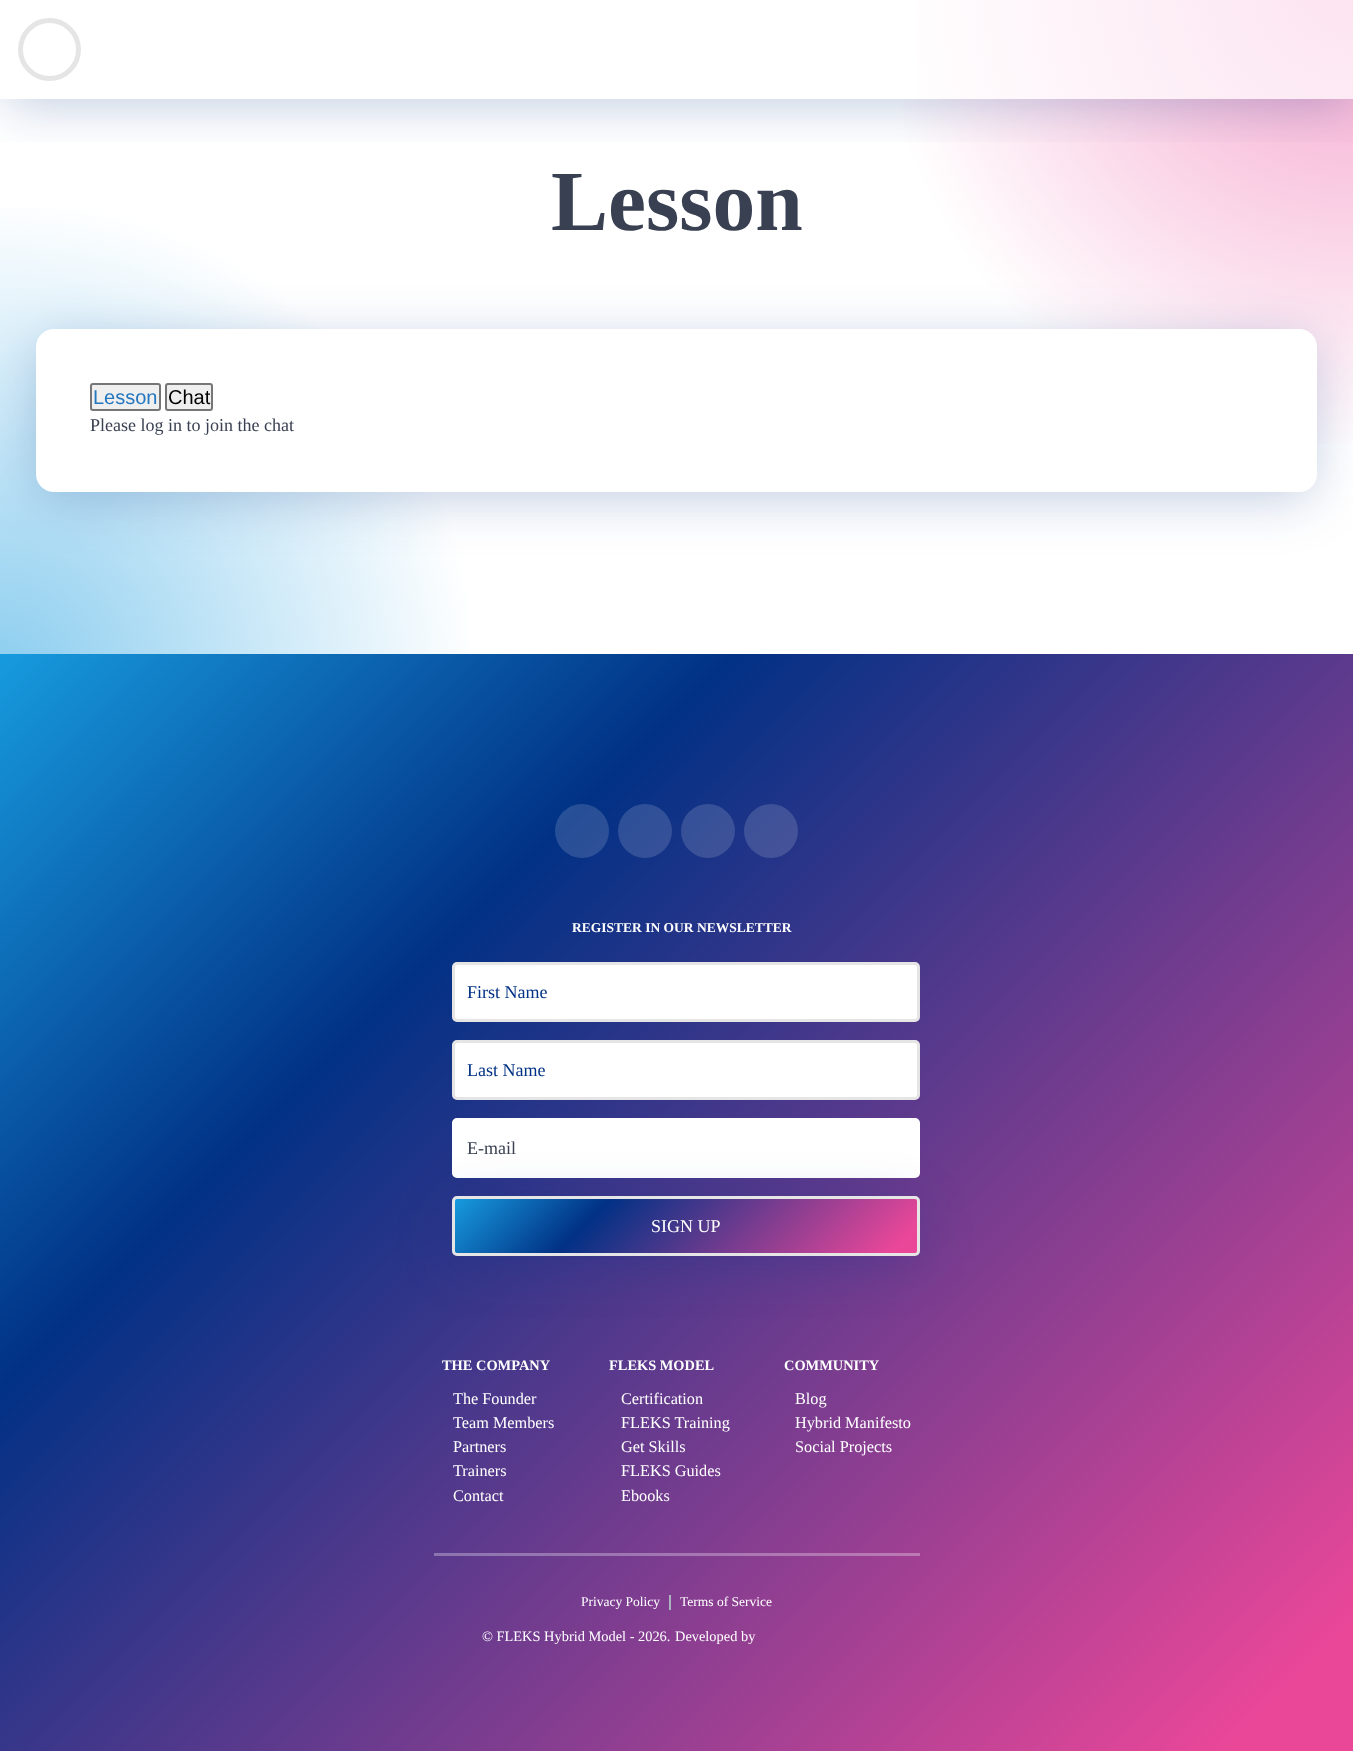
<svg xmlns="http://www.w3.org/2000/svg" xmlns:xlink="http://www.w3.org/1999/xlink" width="1353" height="1753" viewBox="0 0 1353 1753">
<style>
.cls-1{font:bold 85.5px Liberation Serif;fill:#394051}
.cls-2{font:20px Liberation Sans;fill:#2476bf}
.cls-3{font:20px Liberation Sans;fill:#000000}
.cls-4{font:18px Liberation Serif;fill:#394051}
.cls-5{font:bold 13.5px Liberation Serif;fill:#ffffff}
.cls-6{font:18px Liberation Serif;fill:#013185}
.cls-7{font:18px Liberation Serif;fill:#ffffff}
.cls-8{font:bold 14.4px Liberation Serif;fill:#ffffff}
.cls-9{font:16.25px Liberation Serif;fill:#ffffff}
.cls-10{font:13.5px Liberation Serif;fill:#ffffff}
.cls-11{font:14.4px Liberation Serif;fill:#ffffff}
</style>
<defs>
<radialGradient id="g1" gradientUnits="userSpaceOnUse" cx="1353" cy="-22" r="957"><stop offset="0" stop-color="#f5a3cc"/><stop offset="0.5" stop-color="#ffffff"/></radialGradient>
<radialGradient id="g2" gradientUnits="userSpaceOnUse" cx="1353" cy="-22" r="957"><stop offset="0" stop-color="#fce3f0"/><stop offset="0.5" stop-color="#ffffff"/></radialGradient>
<clipPath id="clip1"><rect x="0" y="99" width="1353" height="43"/></clipPath>
<radialGradient id="g3" gradientUnits="userSpaceOnUse" cx="0" cy="677" r="957"><stop offset="0" stop-color="#8bcdef"/><stop offset="0.5" stop-color="#ffffff"/></radialGradient>
<linearGradient id="g4" gradientUnits="userSpaceOnUse" x1="64" y1="590" x2="1289" y2="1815"><stop offset="0" stop-color="#179bde"/><stop offset="0.3" stop-color="#013185"/><stop offset="0.95" stop-color="#eb4799"/></linearGradient>
<linearGradient id="g5" gradientUnits="userSpaceOnUse" x1="64" y1="590" x2="1289" y2="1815"><stop offset="0" stop-color="#5db9e8"/><stop offset="0.3" stop-color="#4d6faa"/><stop offset="0.95" stop-color="#f17eb8"/></linearGradient>
<linearGradient id="g6" gradientUnits="userSpaceOnUse" x1="557" y1="1097" x2="815" y2="1355"><stop offset="0" stop-color="#179bde"/><stop offset="0.3" stop-color="#013185"/><stop offset="0.95" stop-color="#eb4799"/></linearGradient>
</defs>
<rect width="100%" height="100%" fill="#ffffff"/>
<rect fill="url(#g1)" x="903" y="99" width="450" height="345"/>
<rect fill="url(#g2)" x="917" y="0" width="436" height="99"/>
<g clip-path="url(#clip1)">
<rect fill="#013185" fill-opacity="0.25" filter="blur(27px)" x="5" y="14" width="1344" height="90"/>
</g>
<circle fill="none" stroke="#e5e5e5" stroke-width="5" cx="49.5" cy="49.5" r="29"/>
<rect fill="url(#g3)" x="0" y="208" width="468" height="446"/>
<rect fill="#013185" fill-opacity="0.25" filter="blur(27px)" x="41" y="342" width="1272" height="155" rx="14"/>
<rect fill="#ffffff" x="36" y="329" width="1281" height="163" rx="18"/>
<rect fill="#efefef" stroke="#767676" stroke-width="2" x="91" y="384" width="69" height="26" rx="2"/>
<rect fill="#efefef" stroke="#767676" stroke-width="2" x="166" y="384" width="46" height="26" rx="2"/>
<rect fill="url(#g4)" x="0" y="654" width="1353" height="1097"/>
<rect fill="url(#g5)" x="434" y="1553" width="486" height="3"/>
<circle fill="#ffffff" fill-opacity="0.15" cx="582" cy="831" r="27"/>
<circle fill="#ffffff" fill-opacity="0.15" cx="645" cy="831" r="27"/>
<circle fill="#ffffff" fill-opacity="0.15" cx="708" cy="831" r="27"/>
<circle fill="#ffffff" fill-opacity="0.15" cx="771" cy="831" r="27"/>
<rect fill="#ffffff" stroke="#e5e5e5" stroke-width="3" x="453.5" y="963.5" width="465" height="57" rx="3.5"/>
<rect fill="#ffffff" stroke="#e5e5e5" stroke-width="3" x="453.5" y="1041.5" width="465" height="57" rx="3.5"/>
<rect fill="#ffffff" stroke="#ffffff" stroke-width="3" x="453.5" y="1119.5" width="465" height="57" rx="3.5"/>
<rect fill="#013185" fill-opacity="0.25" filter="blur(27px)" x="456" y="1209" width="459" height="51"/>
<rect fill="url(#g6)" x="455" y="1199" width="462" height="54"/>
<rect fill="none" stroke="#e5e5e5" stroke-width="3" x="453.5" y="1197.5" width="465" height="57" rx="3.5"/>
<rect fill="#abb5c0" x="669" y="1595" width="2" height="15"/>
<text class="cls-1" x="551" y="230">Lesson</text>
<text class="cls-2" x="93" y="404">Lesson</text>
<text class="cls-3" x="168" y="404">Chat</text>
<text class="cls-4" x="90" y="431">Please log in to join the chat</text>
<text class="cls-5" x="572" y="932">REGISTER IN OUR NEWSLETTER</text>
<text class="cls-6" x="467" y="998">First Name</text>
<text class="cls-6" x="467" y="1076">Last Name</text>
<text class="cls-4" x="467" y="1154">E-mail</text>
<text class="cls-7" x="651" y="1232">SIGN UP</text>
<text class="cls-8" x="442" y="1370">THE COMPANY</text>
<text class="cls-9"><tspan x="453" y="1404">The Founder</tspan><tspan x="453" y="1428">Team Members</tspan><tspan x="453" y="1452">Partners</tspan><tspan x="453" y="1476">Trainers</tspan><tspan x="453" y="1501">Contact</tspan></text>
<text class="cls-8" x="609" y="1370">FLEKS MODEL</text>
<text class="cls-9"><tspan x="621" y="1404">Certification</tspan><tspan x="621" y="1428">FLEKS Training</tspan><tspan x="621" y="1452">Get Skills</tspan><tspan x="621" y="1476">FLEKS Guides</tspan><tspan x="621" y="1501">Ebooks</tspan></text>
<text class="cls-8" x="784" y="1370">COMMUNITY</text>
<text class="cls-9"><tspan x="795" y="1404">Blog</tspan><tspan x="795" y="1428">Hybrid Manifesto</tspan><tspan x="795" y="1452">Social Projects</tspan></text>
<text class="cls-10" x="581" y="1606">Privacy Policy</text>
<text class="cls-10" x="680" y="1606">Terms of Service</text>
<text class="cls-11" x="482" y="1641">© FLEKS Hybrid Model - 2026.</text>
<text class="cls-11" x="675" y="1641">Developed by</text>
</svg>
